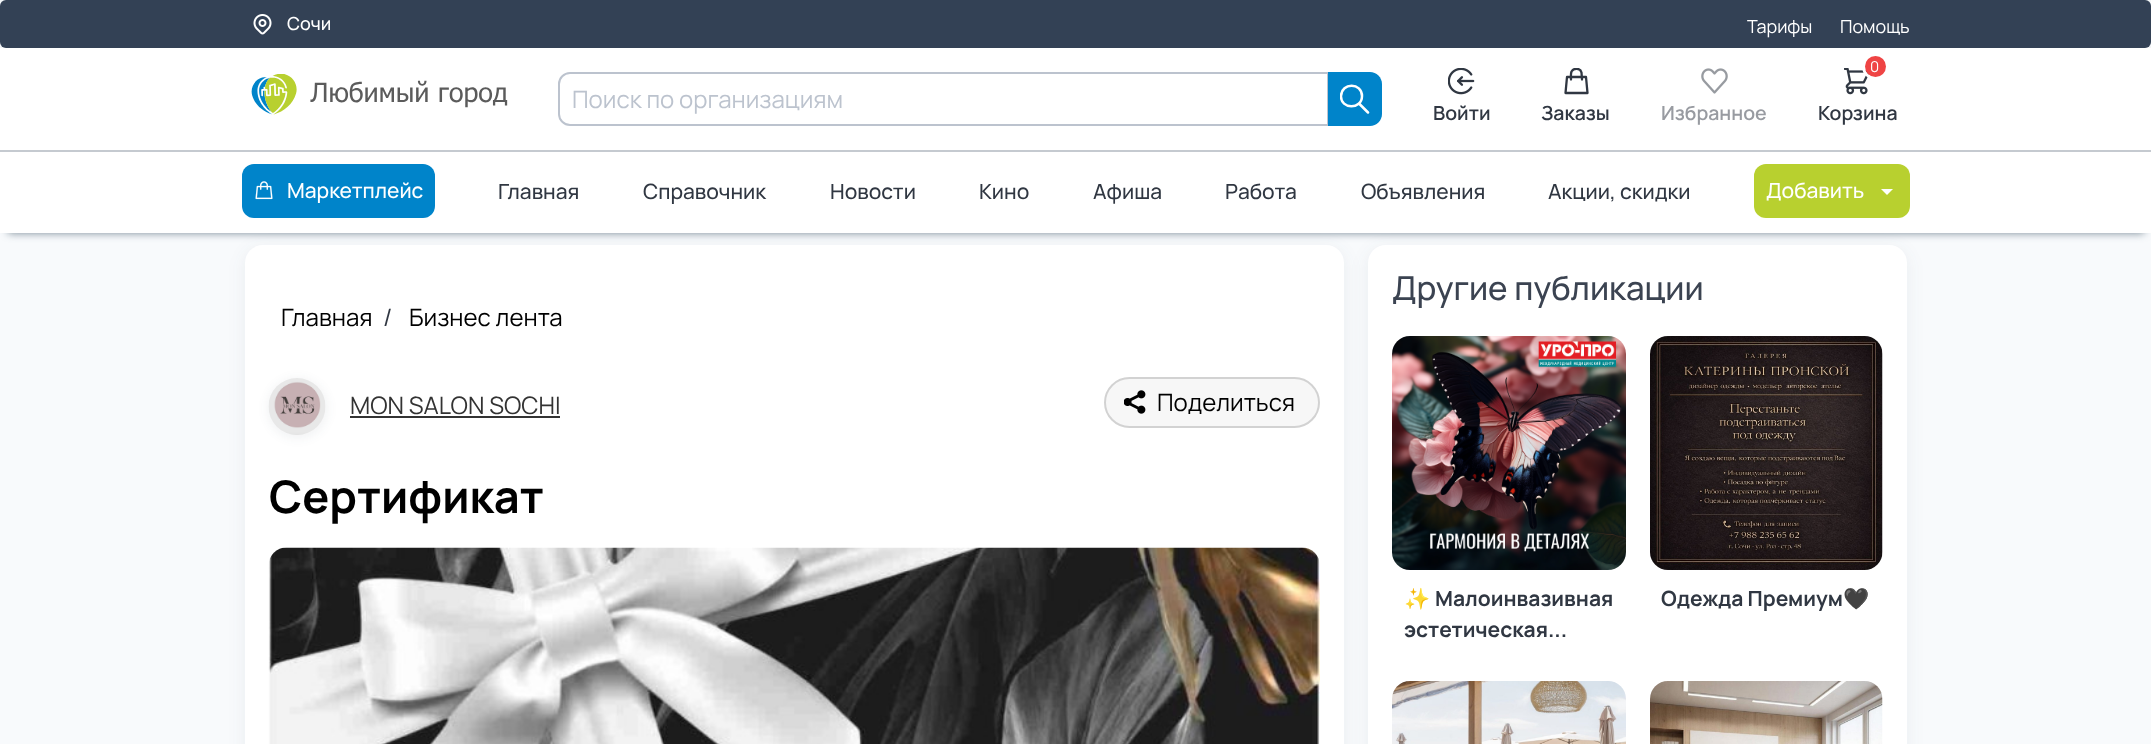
<svg xmlns="http://www.w3.org/2000/svg" xmlns:xlink="http://www.w3.org/1999/xlink" width="2151" height="744" viewBox="0 0 2151 744">
<style>
.cls-1{font:500 18px Manrope;fill:#ffffff}
.cls-2{font:18px Manrope;fill:#ffffff}
.cls-3{font:24px Manrope;fill:#bcc3ce}
.cls-4{font:600 19.5px Manrope;fill:#303742}
.cls-5{font:600 19.5px Manrope;fill:#989ba1}
.cls-6{font:15px Manrope;fill:#ffffff}
.cls-7{font:500 21px Manrope;fill:#ffffff}
.cls-8{font:500 21px Manrope;fill:#303742}
.cls-9{font:24px Manrope;fill:#000000}
.cls-10{font:24px Manrope;fill:#303742}
.cls-11{font:24px Manrope;fill:#333333}
.cls-12{font:bold 45px Manrope;fill:#000000}
.cls-13{font:500 33px Manrope;fill:#3b4351}
.cls-14{font:bold 21px Noto Color Emoji;fill:#303742}
.cls-15{font:bold 21px Manrope;fill:#303742}
</style>
<defs>
<clipPath id="clip1"><rect x="1340" y="84" width="30" height="30"/></clipPath>
<clipPath id="clip2"><rect x="1563" y="68" width="27" height="27"/></clipPath>
</defs>
<rect width="100%" height="100%" fill="#f8fafc"/>
<rect fill="#223c50" fill-opacity="0.05" filter="blur(7.5px)" x="-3" y="2" width="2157" height="54" rx="9"/>
<rect fill="#334155" x="0" y="0" width="2151" height="48" rx="6"/>
<image xlink:href="image0.png" x="253" y="14" width="19" height="21"/>
<rect fill="#ffffff" x="0" y="48" width="2151" height="102"/>
<rect fill="#c5cad0" x="0" y="150" width="2151" height="2"/>
<image xlink:href="image1.png" x="251" y="74" width="257" height="41"/>
<path fill="none" stroke="#bcc3ce" stroke-width="2" d="M570 73H1328V125H570C564 125 559 120 559 114V84C559 78 564 73 570 73Z"/>
<path fill="#0084ca" d="M1328 72H1370C1376.5 72 1382 77.5 1382 84V114C1382 120.5 1376.5 126 1370 126H1328Z"/>
<g clip-path="url(#clip1)">
<path fill="none" stroke="#ffffff" stroke-width="2.5" stroke-linecap="round" stroke-linejoin="round" d="M1368 112.5L1359 103.5M1362 96C1362 110 1340.5 109.5 1341 96C1341.5 82 1362 82.5 1362 96Z"/>
</g>
<image xlink:href="image2.png" x="1448" y="68" width="27" height="27"/>
<g clip-path="url(#clip2)">
<path fill="none" stroke="#303742" stroke-width="2.3" stroke-linecap="round" stroke-linejoin="round" d="M1582 79.5L1581.5 72.5C1580.5 68 1574 67.5 1571.5 71.5C1570.5 74 1571 77 1571 79.5M1567 77H1586L1587.5 93H1565.5Z"/>
</g>
<image xlink:href="image3.png" x="1701" y="68" width="27" height="26"/>
<image xlink:href="image4.png" x="1844" y="68" width="26" height="27"/>
<circle fill="none" stroke="#ffffff" stroke-width="3" cx="1875.5" cy="66.5" r="12"/>
<circle fill="#ef4444" cx="1875.5" cy="66.5" r="10.5"/>
<rect fill="#223c50" fill-opacity="0.6" filter="blur(4px)" x="8" y="167" width="2136" height="66"/>
<rect fill="#ffffff" x="0" y="152" width="2151" height="81"/>
<rect fill="#0084ca" x="242" y="164" width="193" height="54" rx="12"/>
<image xlink:href="image5.png" x="255" y="181" width="18" height="19"/>
<rect fill="#b8d02f" x="1754" y="164" width="156" height="54" rx="12"/>
<path fill="#ffffff" d="M1881 189H1893L1887 195Z"/>
<rect fill="#223c50" fill-opacity="0.05" filter="blur(7.5px)" x="242" y="246" width="1105" height="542" rx="21"/>
<rect fill="#ffffff" x="245" y="245" width="1099" height="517" rx="18"/>
<rect fill="#223c50" fill-opacity="0.05" filter="blur(4px)" x="266" y="377" width="63" height="63" rx="31.5"/>
<image xlink:href="image6.png" x="268" y="378" width="58" height="57"/>
<rect fill="#333333" x="350" y="416" width="210" height="2"/>
<rect fill="#f7f7f7" x="1104" y="377" width="216" height="51" rx="25.5"/>
<rect fill="none" stroke="#000000" stroke-opacity="0.15" stroke-width="2" x="1105" y="378" width="214" height="49" rx="24.5"/>
<image xlink:href="image7.png" x="1124" y="390" width="22" height="24"/>
<image xlink:href="image8.png" x="268" y="547" width="1052" height="197"/>
<rect fill="#223c50" fill-opacity="0.05" filter="blur(7.5px)" x="1365" y="246" width="545" height="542" rx="21"/>
<rect fill="#ffffff" x="1368" y="245" width="539" height="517" rx="18"/>
<image xlink:href="image9.png" x="1392" y="336" width="234" height="234"/>
<image xlink:href="image10.png" x="1650" y="336" width="233" height="234"/>
<image xlink:href="image11.png" x="1392" y="681" width="234" height="63"/>
<image xlink:href="image12.png" x="1650" y="681" width="233" height="63"/>
<text class="cls-1" x="287" y="30">Сочи</text>
<text class="cls-2" x="1747" y="33">Тарифы</text>
<text class="cls-2" x="1840" y="33">Помощь</text>
<text class="cls-3" x="572" y="108">Поиск по организациям</text>
<text class="cls-4" x="1433" y="120">Войти</text>
<text class="cls-4" x="1541" y="120">Заказы</text>
<text class="cls-5" x="1661" y="120">Избранное</text>
<text class="cls-6" x="1870" y="72">0</text>
<text class="cls-4" x="1818" y="120">Корзина</text>
<text class="cls-7" x="287" y="198">Маркетплейс</text>
<text class="cls-8" x="498" y="199">Главная</text>
<text class="cls-8" x="643" y="199">Справочник</text>
<text class="cls-8" x="830" y="199">Новости</text>
<text class="cls-8" x="979" y="199">Кино</text>
<text class="cls-8" x="1093" y="199">Афиша</text>
<text class="cls-8" x="1225" y="199">Работа</text>
<text class="cls-8" x="1361" y="199">Объявления</text>
<text class="cls-8" x="1548" y="199">Акции, скидки</text>
<text class="cls-7" x="1766" y="198">Добавить</text>
<text class="cls-9" x="281" y="326">Главная</text>
<text class="cls-10" x="383" y="326">/</text>
<text class="cls-9" x="409" y="326">Бизнес лента</text>
<text class="cls-11" x="350" y="414">MON SALON SOCHI</text>
<text class="cls-9" x="1157" y="411">Поделиться</text>
<text class="cls-12" x="269" y="513">Сертификат</text>
<text class="cls-13" x="1392" y="300">Другие публикации</text>
<text class="cls-14" x="1404" y="606">✨</text>
<text class="cls-15" x="1435" y="606">Малоинвазивная</text>
<text class="cls-15" x="1404" y="637">эстетическая...</text>
<text class="cls-15" x="1661" y="606">Одежда Премиум</text>
<text class="cls-14" x="1843" y="606">🖤</text>
</svg>
